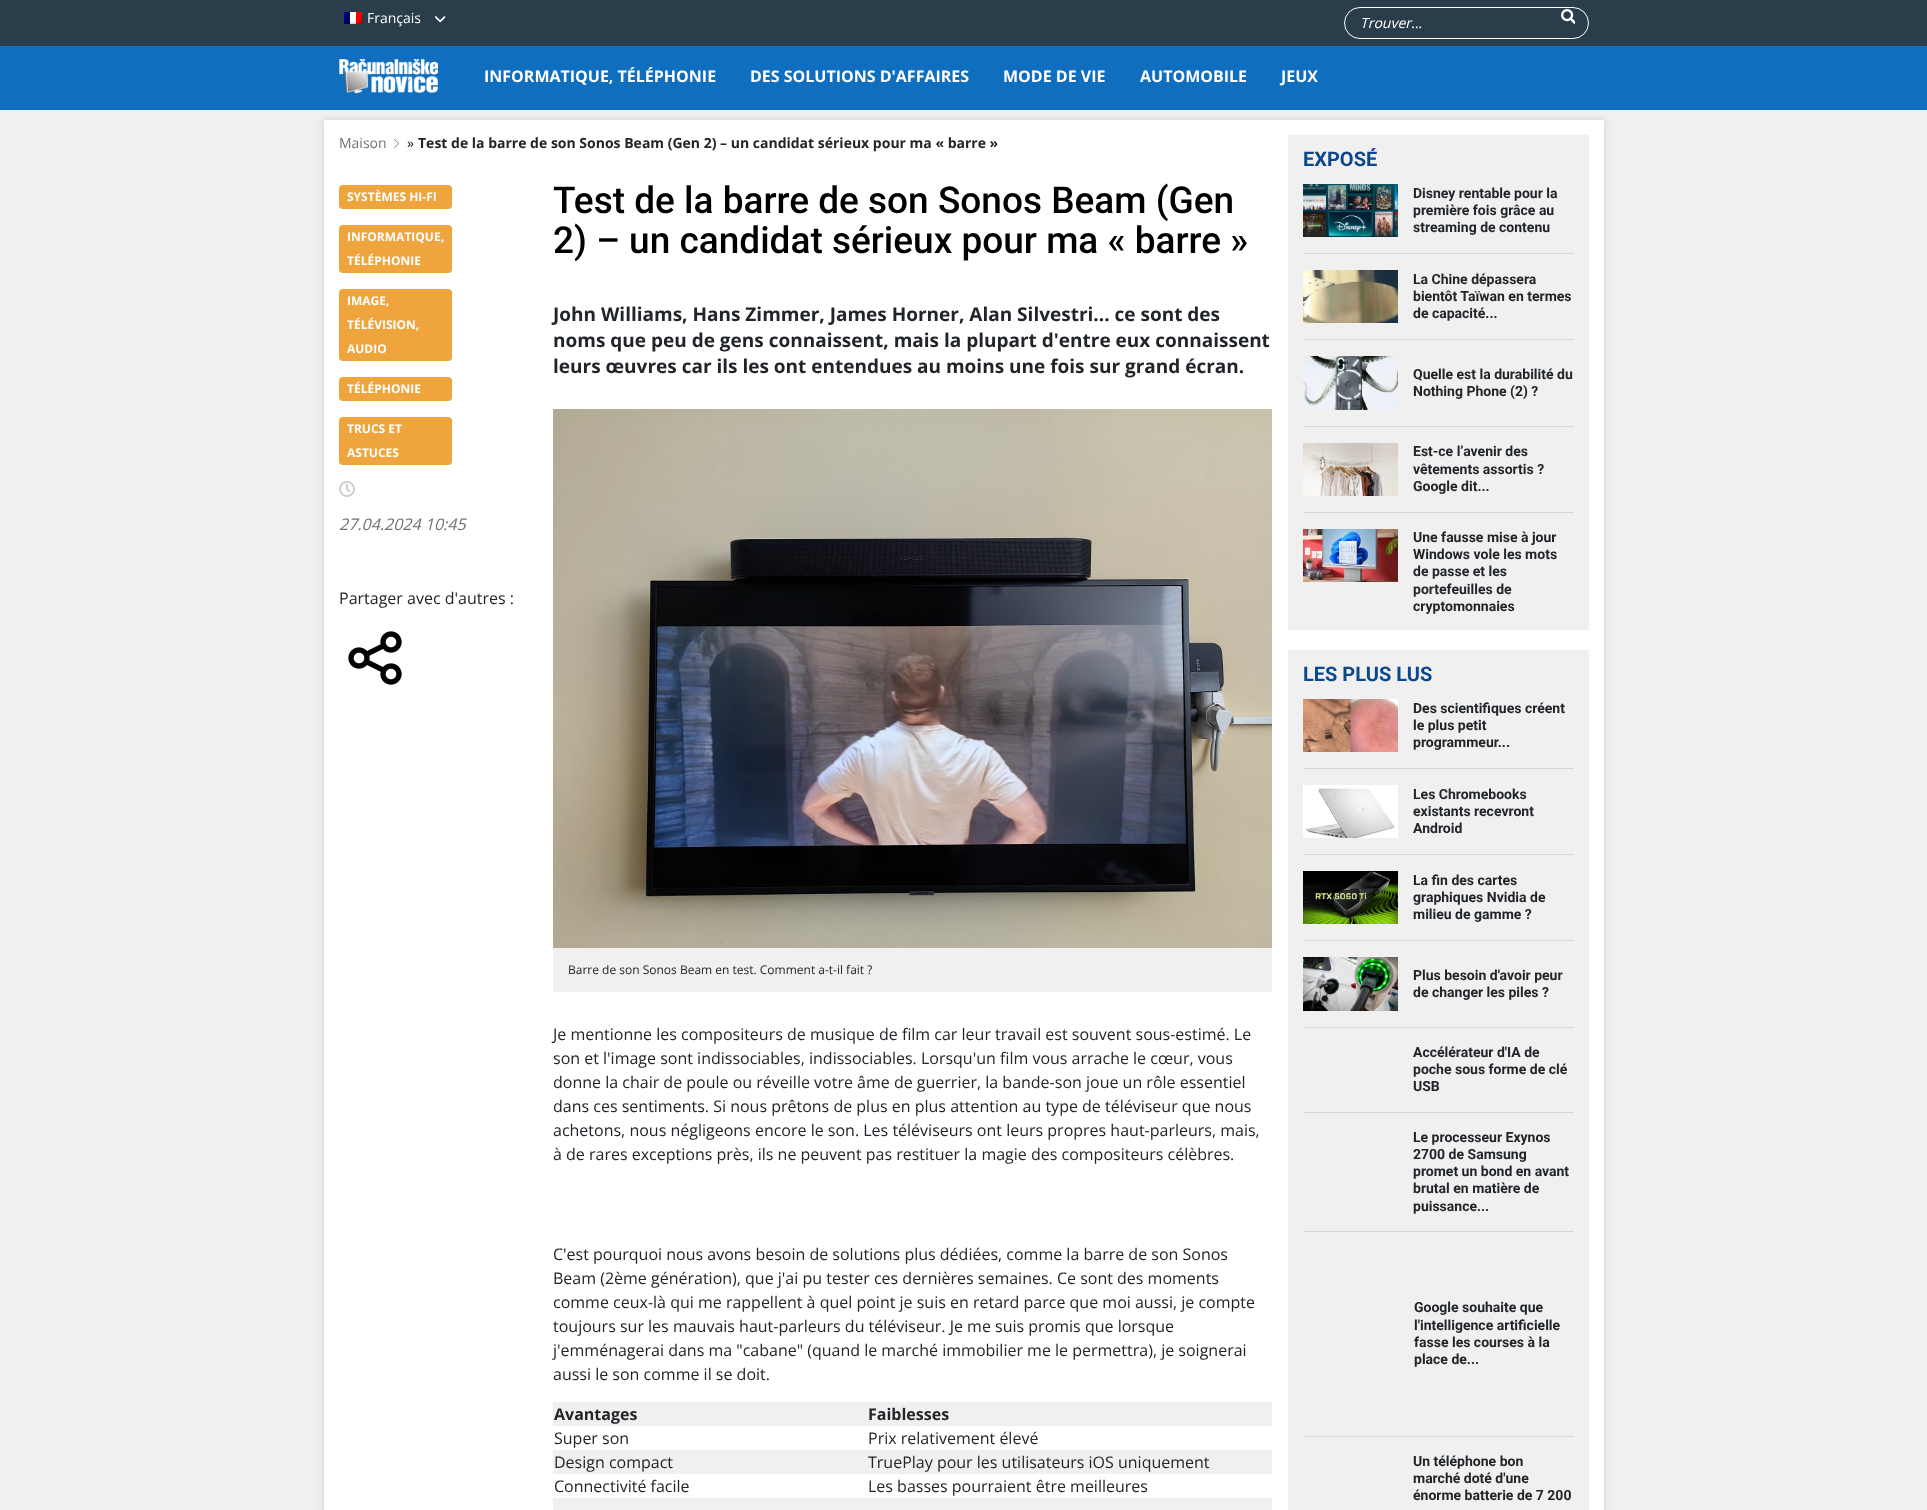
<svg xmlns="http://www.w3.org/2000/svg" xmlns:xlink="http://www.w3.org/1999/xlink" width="1927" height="1510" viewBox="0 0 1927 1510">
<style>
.cls-1{font:14px Open Sans;fill:#ffffff}
.cls-2{font:italic 14px Open Sans;fill:#ffffff}
.cls-3{font:bold 16px Open Sans;fill:#ffffff}
.cls-4{font:14px Open Sans;fill:#707070}
.cls-5{font:14px Open Sans;fill:#212529}
.cls-6{font:bold 14px Open Sans;fill:#212529}
.cls-7{font:bold 12px Open Sans;fill:#ffffff}
.cls-8{font:italic 16px Open Sans;fill:#707070}
.cls-9{font:16px Open Sans;fill:#212529}
.cls-10{font:500 37px Roboto;fill:#000000}
.cls-11{font:bold 19px Open Sans;fill:#212529}
.cls-12{font:12px Open Sans;fill:#212529}
.cls-13{font:bold 16px Open Sans;fill:#212529}
.cls-14{font:bold 20px Roboto;fill:#0a478e}
.cls-15{font:bold 14px Roboto;fill:#212529}
</style>
<rect width="100%" height="100%" fill="#f0f0f0"/>
<rect fill="#106ebe" x="0" y="46" width="1927" height="64"/>
<rect fill="#293e4a" x="0" y="0" width="1927" height="46"/>
<image xlink:href="image0.png" x="344" y="12" width="18" height="12"/>
<image xlink:href="image1.png" x="435" y="16" width="11" height="7"/>
<rect fill="none" stroke="#ffffff" x="1344.5" y="7.5" width="244" height="31" rx="15.5"/>
<image xlink:href="image2.png" x="1561" y="9" width="14" height="15"/>
<image xlink:href="image3.png" x="339" y="59" width="99" height="35"/>
<rect fill="#000000" fill-opacity="0.16" filter="blur(3px)" x="324" y="120" width="1280" height="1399"/>
<rect fill="#ffffff" x="324" y="120" width="1280" height="1390"/>
<image xlink:href="image4.png" x="394" y="139" width="5" height="9"/>
<rect fill="#efa43d" x="339" y="185" width="113" height="24" rx="4"/>
<rect fill="#efa43d" x="339" y="225" width="113" height="48" rx="4"/>
<rect fill="#efa43d" x="339" y="289" width="113" height="72" rx="4"/>
<rect fill="#efa43d" x="339" y="377" width="113" height="24" rx="4"/>
<rect fill="#efa43d" x="339" y="417" width="113" height="48" rx="4"/>
<image xlink:href="image5.png" x="339" y="481" width="16" height="16"/>
<image xlink:href="image6.png" x="348" y="631" width="54" height="54"/>
<image xlink:href="image7.png" x="553" y="409" width="719" height="539"/>
<rect fill="#f0f0f0" x="553" y="948" width="719" height="44"/>
<rect fill="#f0f0f0" x="553" y="1402" width="719" height="24"/>
<rect fill="#f0f0f0" x="553" y="1450" width="719" height="24"/>
<rect fill="#f0f0f0" x="553" y="1498" width="719" height="12"/>
<rect fill="#f0f0f0" x="1288" y="135" width="301" height="495"/>
<image xlink:href="image8.png" x="1303" y="184" width="95" height="53"/>
<rect fill="#d8d8d8" x="1303" y="253" width="271" height="1"/>
<image xlink:href="image9.png" x="1303" y="270" width="95" height="53"/>
<rect fill="#d8d8d8" x="1303" y="339" width="271" height="1"/>
<image xlink:href="image10.png" x="1303" y="356" width="95" height="54"/>
<rect fill="#d8d8d8" x="1303" y="426" width="271" height="1"/>
<image xlink:href="image11.png" x="1303" y="443" width="95" height="53"/>
<rect fill="#d8d8d8" x="1303" y="512" width="271" height="1"/>
<image xlink:href="image12.png" x="1303" y="529" width="95" height="53"/>
<rect fill="#f0f0f0" x="1288" y="650" width="301" height="860"/>
<image xlink:href="image13.png" x="1303" y="699" width="95" height="53"/>
<rect fill="#d8d8d8" x="1303" y="768" width="271" height="1"/>
<image xlink:href="image14.png" x="1303" y="785" width="95" height="53"/>
<rect fill="#d8d8d8" x="1303" y="854" width="271" height="1"/>
<image xlink:href="image15.png" x="1303" y="871" width="95" height="53"/>
<rect fill="#d8d8d8" x="1303" y="940" width="271" height="1"/>
<image xlink:href="image16.png" x="1303" y="957" width="95" height="54"/>
<rect fill="#d8d8d8" x="1303" y="1027" width="271" height="1"/>
<rect fill="#d8d8d8" x="1303" y="1112" width="271" height="1"/>
<rect fill="#d8d8d8" x="1303" y="1231" width="271" height="1"/>
<rect fill="#d8d8d8" x="1303" y="1436" width="271" height="1"/>
<text class="cls-1" x="367" y="23">Français</text>
<text class="cls-2" x="1360" y="28">Trouver...</text>
<text class="cls-3" x="484" y="82">INFORMATIQUE, TÉLÉPHONIE</text>
<text class="cls-3" x="750" y="82">DES SOLUTIONS D'AFFAIRES</text>
<text class="cls-3" x="1003" y="82">MODE DE VIE</text>
<text class="cls-3" x="1140" y="82">AUTOMOBILE</text>
<text class="cls-3" x="1281" y="82">JEUX</text>
<text class="cls-4" x="339" y="148">Maison</text>
<text class="cls-5" x="407" y="148">»</text>
<text class="cls-6" x="418" y="148">Test de la barre de son Sonos Beam (Gen 2) – un candidat sérieux pour ma « barre »</text>
<text class="cls-7" x="347" y="201">SYSTÈMES HI-FI</text>
<text class="cls-7" x="347" y="241">INFORMATIQUE,</text>
<text class="cls-7" x="347" y="265">TÉLÉPHONIE</text>
<text class="cls-7" x="347" y="305">IMAGE,</text>
<text class="cls-7" x="347" y="329">TÉLÉVISION,</text>
<text class="cls-7" x="347" y="353">AUDIO</text>
<text class="cls-7" x="347" y="393">TÉLÉPHONIE</text>
<text class="cls-7" x="347" y="433">TRUCS ET</text>
<text class="cls-7" x="347" y="457">ASTUCES</text>
<text class="cls-8" x="339" y="530">27.04.2024 10:45</text>
<text class="cls-9" x="339" y="604">Partager avec d'autres :</text>
<text class="cls-10"><tspan x="553" y="213">Test de la barre de son Sonos Beam (Gen</tspan><tspan x="553" y="253">2) – un candidat sérieux pour ma « barre »</tspan></text>
<text class="cls-11"><tspan x="553" y="321">John Williams, Hans Zimmer, James Horner, Alan Silvestri... ce sont des</tspan><tspan x="553" y="347">noms que peu de gens connaissent, mais la plupart d'entre eux connaissent</tspan><tspan x="553" y="373">leurs œuvres car ils les ont entendues au moins une fois sur grand écran.</tspan></text>
<text class="cls-12" x="568" y="974">Barre de son Sonos Beam en test. Comment a-t-il fait ?</text>
<text class="cls-9"><tspan x="553" y="1040">Je mentionne les compositeurs de musique de film car leur travail est souvent sous-estimé. Le</tspan><tspan x="553" y="1064">son et l'image sont indissociables, indissociables. Lorsqu'un film vous arrache le cœur, vous</tspan><tspan x="553" y="1088">donne la chair de poule ou réveille votre âme de guerrier, la bande-son joue un rôle essentiel</tspan><tspan x="553" y="1112">dans ces sentiments. Si nous prêtons de plus en plus attention au type de téléviseur que nous</tspan><tspan x="553" y="1136">achetons, nous négligeons encore le son. Les téléviseurs ont leurs propres haut-parleurs, mais,</tspan><tspan x="553" y="1160">à de rares exceptions près, ils ne peuvent pas restituer la magie des compositeurs célèbres.</tspan></text>
<text class="cls-9"><tspan x="553" y="1260">C'est pourquoi nous avons besoin de solutions plus dédiées, comme la barre de son Sonos</tspan><tspan x="553" y="1284">Beam (2ème génération), que j'ai pu tester ces dernières semaines. Ce sont des moments</tspan><tspan x="553" y="1308">comme ceux-là qui me rappellent à quel point je suis en retard parce que moi aussi, je compte</tspan><tspan x="553" y="1332">toujours sur les mauvais haut-parleurs du téléviseur. Je me suis promis que lorsque</tspan><tspan x="553" y="1356">j'emménagerai dans ma "cabane" (quand le marché immobilier me le permettra), je soignerai</tspan><tspan x="553" y="1380">aussi le son comme il se doit.</tspan></text>
<text class="cls-13" x="554" y="1420">Avantages</text>
<text class="cls-13" x="868" y="1420">Faiblesses</text>
<text class="cls-9" x="554" y="1444">Super son</text>
<text class="cls-9" x="868" y="1444">Prix relativement élevé</text>
<text class="cls-9" x="554" y="1468">Design compact</text>
<text class="cls-9" x="868" y="1468">TruePlay pour les utilisateurs iOS uniquement</text>
<text class="cls-9" x="554" y="1492">Connectivité facile</text>
<text class="cls-9" x="868" y="1492">Les basses pourraient être meilleures</text>
<text class="cls-14" x="1303" y="166">EXPOSÉ</text>
<text class="cls-15"><tspan x="1413" y="198">Disney rentable pour la</tspan><tspan x="1413" y="215">première fois grâce au</tspan><tspan x="1413" y="232">streaming de contenu</tspan></text>
<text class="cls-15"><tspan x="1413" y="284">La Chine dépassera</tspan><tspan x="1413" y="301">bientôt Taïwan en termes</tspan><tspan x="1413" y="318">de capacité...</tspan></text>
<text class="cls-15"><tspan x="1413" y="379">Quelle est la durabilité du</tspan><tspan x="1413" y="396">Nothing Phone (2) ?</tspan></text>
<text class="cls-15"><tspan x="1413" y="456">Est-ce l’avenir des</tspan><tspan x="1413" y="474">vêtements assortis ?</tspan><tspan x="1413" y="491">Google dit...</tspan></text>
<text class="cls-15"><tspan x="1413" y="542">Une fausse mise à jour</tspan><tspan x="1413" y="559">Windows vole les mots</tspan><tspan x="1413" y="576">de passe et les</tspan><tspan x="1413" y="594">portefeuilles de</tspan><tspan x="1413" y="611">cryptomonnaies</tspan></text>
<text class="cls-14" x="1303" y="681">LES PLUS LUS</text>
<text class="cls-15"><tspan x="1413" y="713">Des scientifiques créent</tspan><tspan x="1413" y="730">le plus petit</tspan><tspan x="1413" y="747">programmeur...</tspan></text>
<text class="cls-15"><tspan x="1413" y="799">Les Chromebooks</tspan><tspan x="1413" y="816">existants recevront</tspan><tspan x="1413" y="833">Android</tspan></text>
<text class="cls-15"><tspan x="1413" y="885">La fin des cartes</tspan><tspan x="1413" y="902">graphiques Nvidia de</tspan><tspan x="1413" y="919">milieu de gamme ?</tspan></text>
<text class="cls-15"><tspan x="1413" y="980">Plus besoin d'avoir peur</tspan><tspan x="1413" y="997">de changer les piles ?</tspan></text>
<text class="cls-15"><tspan x="1413" y="1057">Accélérateur d'IA de</tspan><tspan x="1413" y="1074">poche sous forme de clé</tspan><tspan x="1413" y="1091">USB</tspan></text>
<text class="cls-15"><tspan x="1413" y="1142">Le processeur Exynos</tspan><tspan x="1413" y="1159">2700 de Samsung</tspan><tspan x="1413" y="1176">promet un bond en avant</tspan><tspan x="1413" y="1193">brutal en matière de</tspan><tspan x="1413" y="1211">puissance...</tspan></text>
<text class="cls-15"><tspan x="1414" y="1312">Google souhaite que</tspan><tspan x="1414" y="1330">l'intelligence artificielle</tspan><tspan x="1414" y="1347">fasse les courses à la</tspan><tspan x="1414" y="1364">place de...</tspan></text>
<text class="cls-15"><tspan x="1413" y="1466">Un téléphone bon</tspan><tspan x="1413" y="1483">marché doté d'une</tspan><tspan x="1413" y="1500">énorme batterie de 7 200</tspan></text>
</svg>
